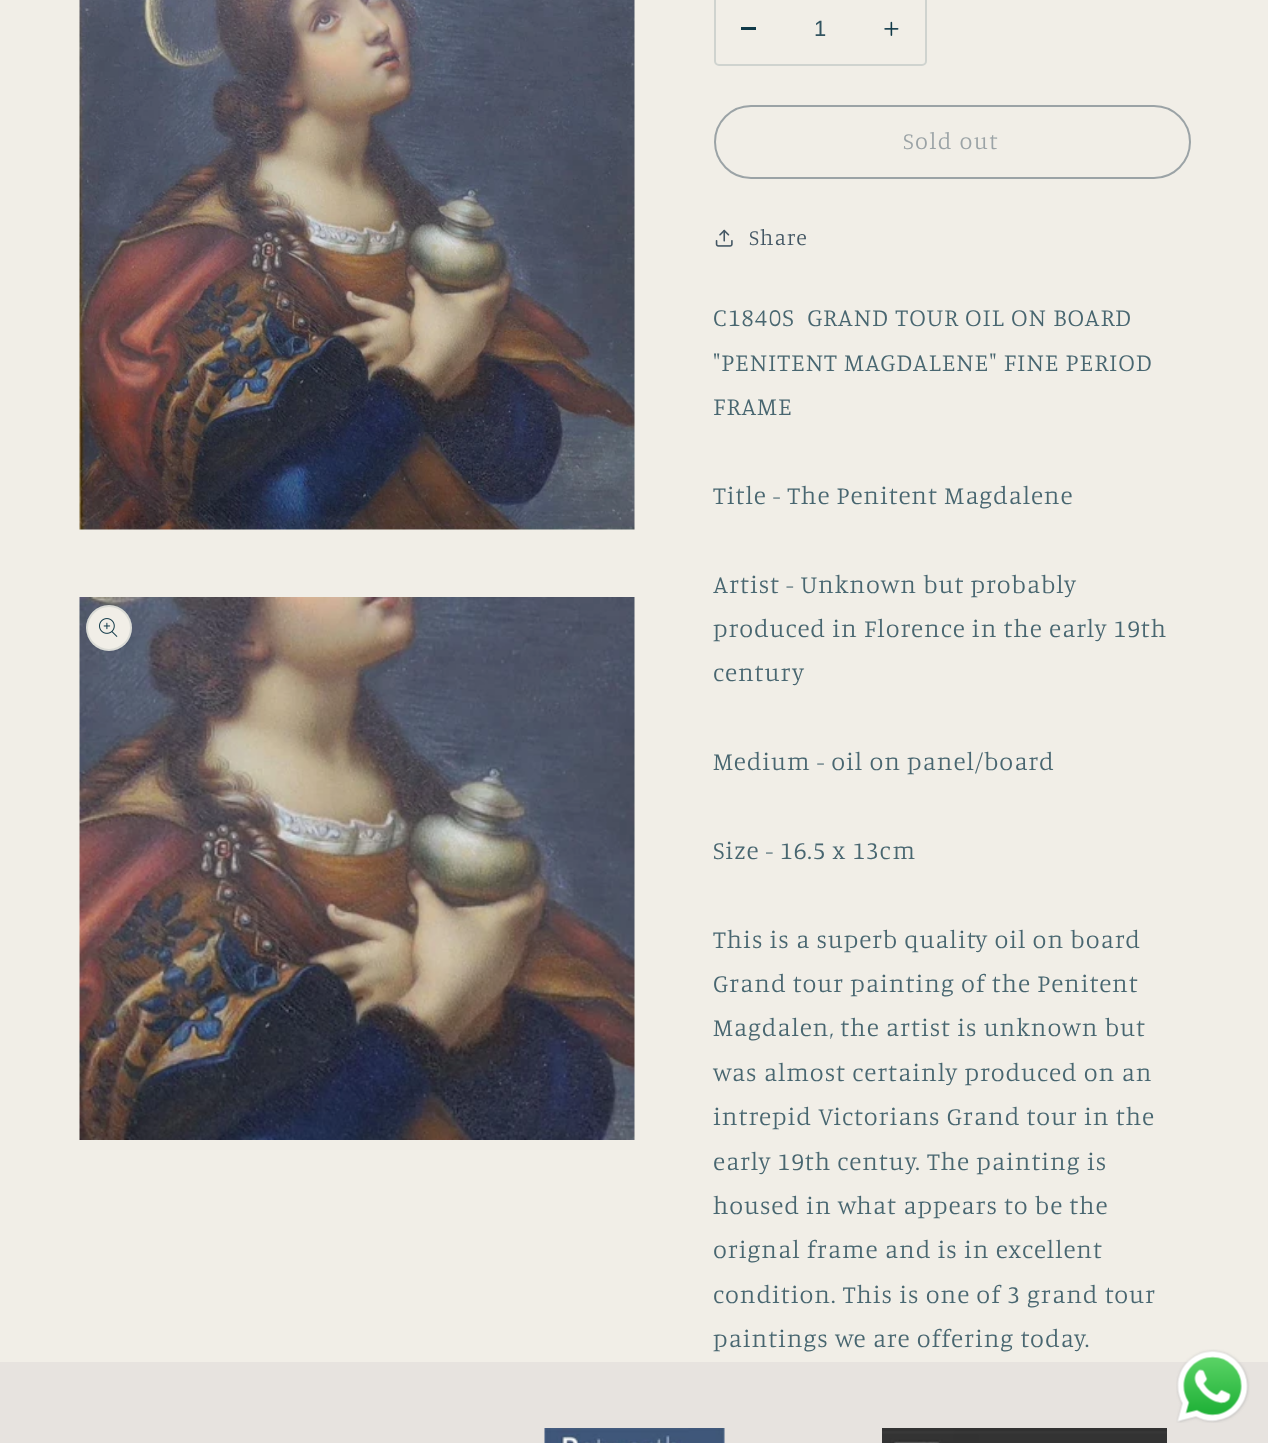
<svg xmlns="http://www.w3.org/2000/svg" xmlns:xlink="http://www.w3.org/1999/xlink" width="1268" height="1443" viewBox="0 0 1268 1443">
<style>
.cls-1{font:22px Liberation Sans;fill:#325460}
.cls-2{font:300 23.5px Manuale;letter-spacing:1.5px;fill:#9ba3a6}
.cls-3{font:300 22px Manuale;letter-spacing:0.95px;fill:#445764}
.cls-4{font:300 25.25px Manuale;letter-spacing:0.95px;fill:#486670}
</style>
<rect width="100%" height="100%" fill="#f1eee7"/>
<image xlink:href="image0.png" x="79" y="0" width="556" height="530"/>
<image xlink:href="image1.png" x="79" y="597" width="556" height="543"/>
<circle fill="#f1eee7" cx="109" cy="628" r="23"/>
<circle fill="none" stroke="#103948" stroke-opacity="0.1" stroke-width="2" cx="109" cy="628" r="22"/>
<image xlink:href="image2.png" x="99" y="618" width="19" height="19"/>
<rect fill="#103948" x="741" y="27" width="15" height="3"/>
<image xlink:href="image3.png" x="884" y="21" width="15" height="15"/>
<rect fill="none" stroke="#cfd3cf" stroke-width="2" x="715" y="-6" width="211" height="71" rx="4"/>
<rect fill="none" stroke="#9ba3a6" stroke-width="2" x="715" y="106" width="475" height="72" rx="36"/>
<image xlink:href="image4.png" x="715" y="229" width="18" height="18"/>
<rect fill="#e7e3df" x="0" y="1362" width="1268" height="81"/>
<image xlink:href="image5.png" x="1176" y="1349" width="74" height="74"/>
<image xlink:href="image6.png" x="544" y="1428" width="181" height="15"/>
<image xlink:href="image7.png" x="882" y="1428" width="285" height="15"/>
<text class="cls-1" x="814" y="36">1</text>
<text class="cls-2" x="903" y="149">Sold out</text>
<text class="cls-3" x="749" y="245">Share</text>
<text class="cls-4" xml:space="preserve"><tspan x="713" y="326">C1840S  GRAND TOUR OIL ON BOARD</tspan><tspan x="713" y="371">"PENITENT MAGDALENE" FINE PERIOD</tspan><tspan x="713" y="415">FRAME</tspan></text>
<text class="cls-4" x="713" y="504">Title - The Penitent Magdalene</text>
<text class="cls-4"><tspan x="713" y="593">Artist - Unknown but probably</tspan><tspan x="713" y="637">produced in Florence in the early 19th</tspan><tspan x="713" y="681">century</tspan></text>
<text class="cls-4" x="713" y="770">Medium - oil on panel/board</text>
<text class="cls-4" x="713" y="859">Size - 16.5 x 13cm</text>
<text class="cls-4"><tspan x="713" y="948">This is a superb quality oil on board</tspan><tspan x="713" y="992">Grand tour painting of the Penitent</tspan><tspan x="713" y="1036">Magdalen, the artist is unknown but</tspan><tspan x="713" y="1081">was almost certainly produced on an</tspan><tspan x="713" y="1125">intrepid Victorians Grand tour in the</tspan><tspan x="713" y="1170">early 19th centuy. The painting is</tspan><tspan x="713" y="1214">housed in what appears to be the</tspan><tspan x="713" y="1258">orignal frame and is in excellent</tspan><tspan x="713" y="1303">condition. This is one of 3 grand tour</tspan><tspan x="713" y="1347">paintings we are offering today.</tspan></text>
</svg>
